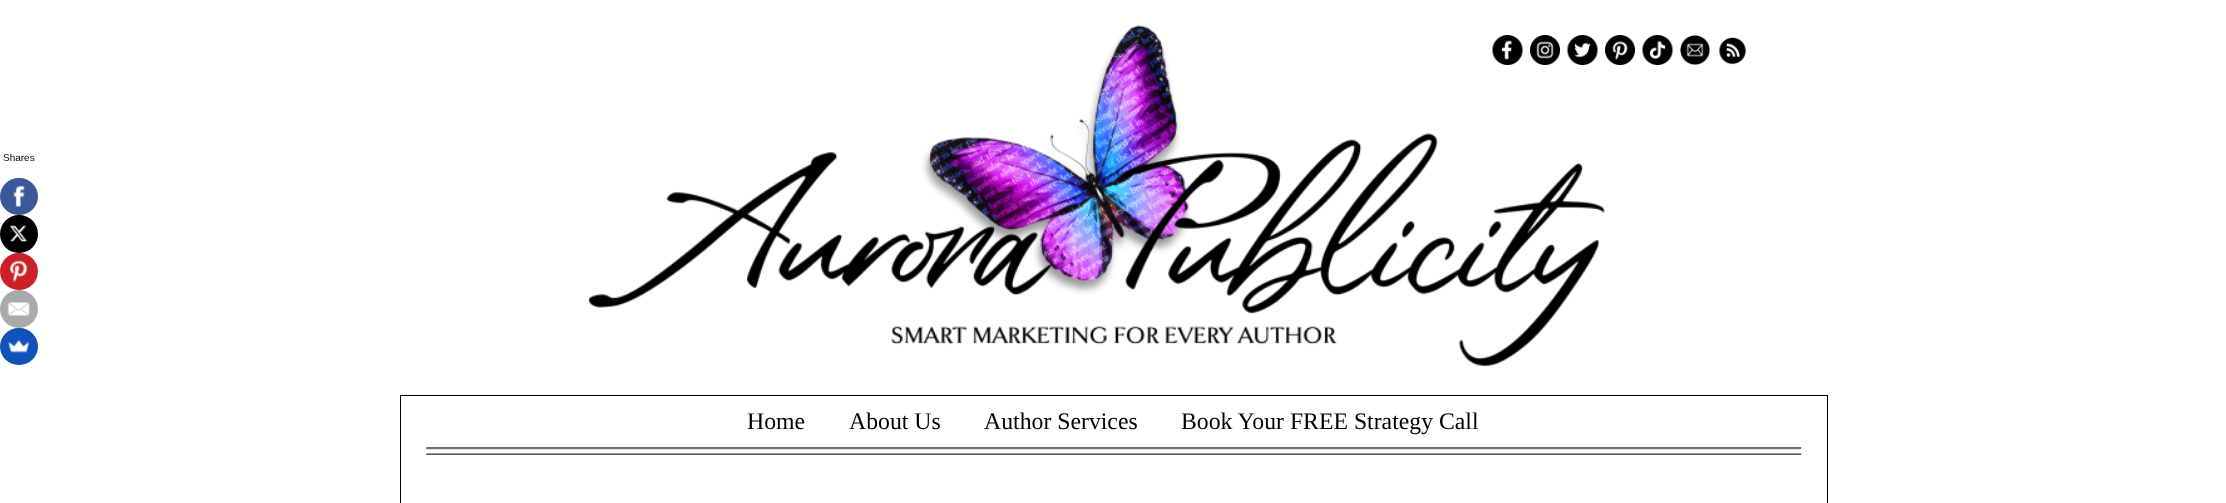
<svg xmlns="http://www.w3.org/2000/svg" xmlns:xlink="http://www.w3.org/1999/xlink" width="2226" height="503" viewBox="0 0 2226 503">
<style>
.cls-1{font:10px Liberation Sans;fill:#000000}
.cls-2{font:23.75px Liberation Serif;fill:#000000}
</style>
<rect width="100%" height="100%" fill="#ffffff"/>
<rect fill="#3b5998" x="0" y="178" width="38" height="37" rx="18.5"/>
<image xlink:href="image0.png" x="13" y="185" width="12" height="22"/>
<circle fill="#000000" cx="19" cy="234" r="19"/>
<image xlink:href="image1.png" x="9" y="225" width="19" height="17"/>
<rect fill="#cb2027" x="0" y="253" width="38" height="37" rx="18.5"/>
<image xlink:href="image2.png" x="10" y="260" width="18" height="23"/>
<circle fill="#aaaaaa" cx="19" cy="309" r="19"/>
<image xlink:href="image3.png" x="7" y="302" width="23" height="14"/>
<rect fill="#0f52ba" x="0" y="328" width="38" height="37" rx="18.5"/>
<image xlink:href="image4.png" x="8" y="340" width="22" height="13"/>
<image xlink:href="image5.png" x="588" y="25" width="1017" height="342"/>
<image xlink:href="image6.png" x="1492" y="35" width="31" height="30"/>
<image xlink:href="image7.png" x="1530" y="35" width="30" height="30"/>
<image xlink:href="image8.png" x="1567" y="35" width="31" height="30"/>
<image xlink:href="image9.png" x="1605" y="35" width="30" height="30"/>
<image xlink:href="image10.png" x="1642" y="35" width="31" height="30"/>
<image xlink:href="image11.png" x="1680" y="35" width="30" height="30"/>
<image xlink:href="image12.png" x="1719" y="37" width="27" height="28"/>
<rect fill="none" stroke="#000000" x="400.5" y="395.5" width="1427" height="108"/>
<image xlink:href="image13.png" x="426" y="447" width="1376" height="8"/>
<text class="cls-1" x="3" y="161">Shares</text>
<text class="cls-2" x="747" y="429">Home</text>
<text class="cls-2" x="849" y="429">About Us</text>
<text class="cls-2" x="984" y="429">Author Services</text>
<text class="cls-2" x="1181" y="429">Book Your FREE Strategy Call</text>
</svg>
